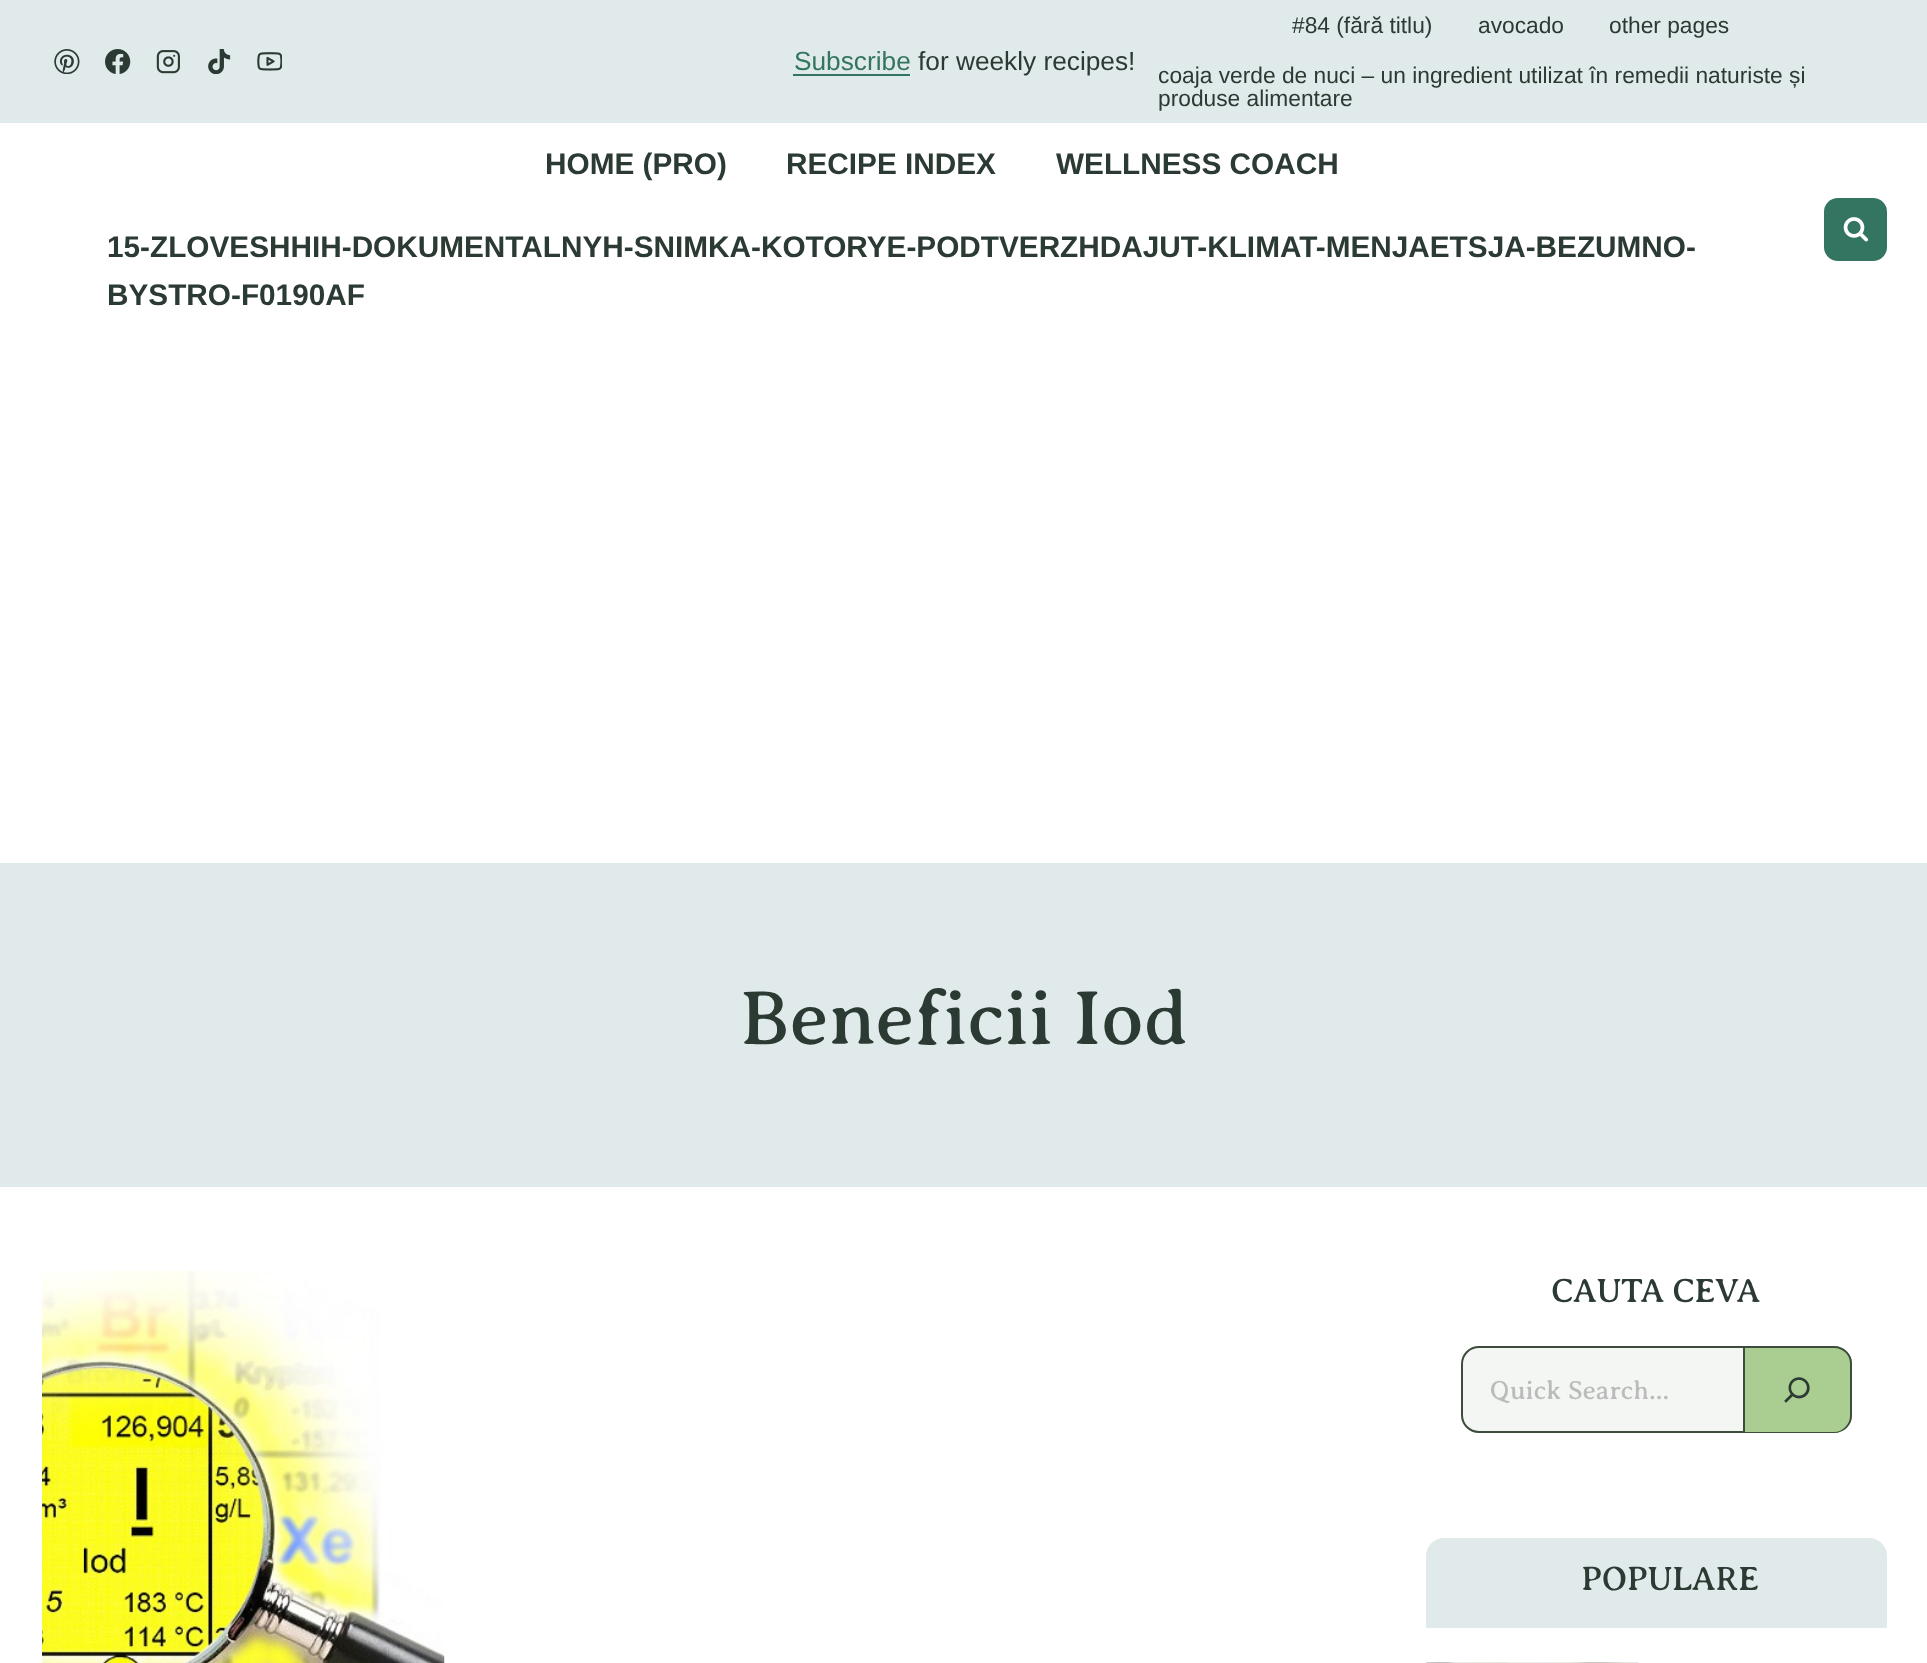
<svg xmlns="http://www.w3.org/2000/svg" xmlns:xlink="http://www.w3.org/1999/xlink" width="1927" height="1663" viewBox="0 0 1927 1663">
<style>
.cls-1{font:26.25px Liberation Sans;fill:#337560}
.cls-2{font:26.25px Liberation Sans;fill:#2b3a33}
.cls-3{font:22.75px Liberation Sans;fill:#2b3a33}
.cls-4{font:bold 29.75px Liberation Sans;fill:#2b3a33}
.cls-5{font:77.5px Averia Serif Libre;fill:#2b3a33}
.cls-6{font:34px Averia Serif Libre;letter-spacing:-0.5px;fill:#2b3a33}
.cls-7{font:26.25px Averia Serif Libre;fill:#bbbbbb}
</style>
<rect width="100%" height="100%" fill="#ffffff"/>
<rect fill="#e1eaea" x="0" y="0" width="1927" height="123"/>
<image xlink:href="image0.png" x="54" y="49" width="26" height="25"/>
<image xlink:href="image1.png" x="105" y="49" width="26" height="25"/>
<image xlink:href="image2.png" x="156" y="50" width="24" height="24"/>
<image xlink:href="image3.png" x="208" y="49" width="23" height="25"/>
<image xlink:href="image4.png" x="257" y="52" width="25" height="19"/>
<rect fill="#337560" x="793" y="74" width="117" height="2"/>
<rect fill="#337560" x="1824" y="198" width="63" height="63" rx="14"/>
<image xlink:href="image5.png" x="1843" y="217" width="25" height="25"/>
<rect fill="#e1eaea" x="0" y="863" width="1927" height="324"/>
<image xlink:href="image6.png" x="42" y="1271" width="403" height="392"/>
<path fill="#f3f6f3" stroke="#3d4c3c" stroke-width="2" d="M1479 1347H1744V1432H1479C1469.5 1432 1462 1424.5 1462 1415V1364C1462 1354.5 1469.5 1347 1479 1347Z"/>
<path fill="#aace91" d="M1745 1346H1834C1844 1346 1852 1354 1852 1364V1415C1852 1425 1844 1433 1834 1433H1745Z"/>
<path fill="#3d4c3c" fill-rule="evenodd" d="M1745 1346H1834C1844 1346 1852 1354 1852 1363V1416C1852 1425 1844 1433 1834 1433H1745ZM1745 1348H1834C1843 1348 1850 1355 1850 1363V1416C1850 1424 1843 1432 1834 1432H1745Z"/>
<image xlink:href="image7.png" x="1784" y="1377" width="26" height="26"/>
<path fill="#e1eaea" d="M1444 1538H1869C1879 1538 1887 1546 1887 1556V1628H1426V1556C1426 1546 1434 1538 1444 1538Z"/>
<image xlink:href="image8.png" x="1426" y="1662" width="212" height="1"/>
<text class="cls-1" x="794" y="70">Subscribe</text>
<text class="cls-2" x="918" y="70">for weekly recipes!</text>
<text class="cls-3" x="1292" y="33">#84 (fără titlu)</text>
<text class="cls-3" x="1478" y="33">avocado</text>
<text class="cls-3" x="1609" y="33">other pages</text>
<text class="cls-3"><tspan x="1158" y="83">coaja verde de nuci – un ingredient utilizat în remedii naturiste și</tspan><tspan x="1158" y="106">produse alimentare</tspan></text>
<text class="cls-4" x="545" y="174">HOME (PRO)</text>
<text class="cls-4" x="786" y="174">RECIPE INDEX</text>
<text class="cls-4" x="1056" y="174">WELLNESS COACH</text>
<text class="cls-4"><tspan x="107" y="257">15-ZLOVESHHIH-DOKUMENTALNYH-SNIMKA-KOTORYE-PODTVERZHDAJUT-KLIMAT-MENJAETSJA-BEZUMNO-</tspan><tspan x="107" y="305">BYSTRO-F0190AF</tspan></text>
<text class="cls-5" x="740" y="1044">Beneficii Iod</text>
<text class="cls-6" x="1551" y="1302">CAUTA CEVA</text>
<text class="cls-7" x="1490" y="1399">Quick Search...</text>
<text class="cls-6" x="1581" y="1590">POPULARE</text>
</svg>
